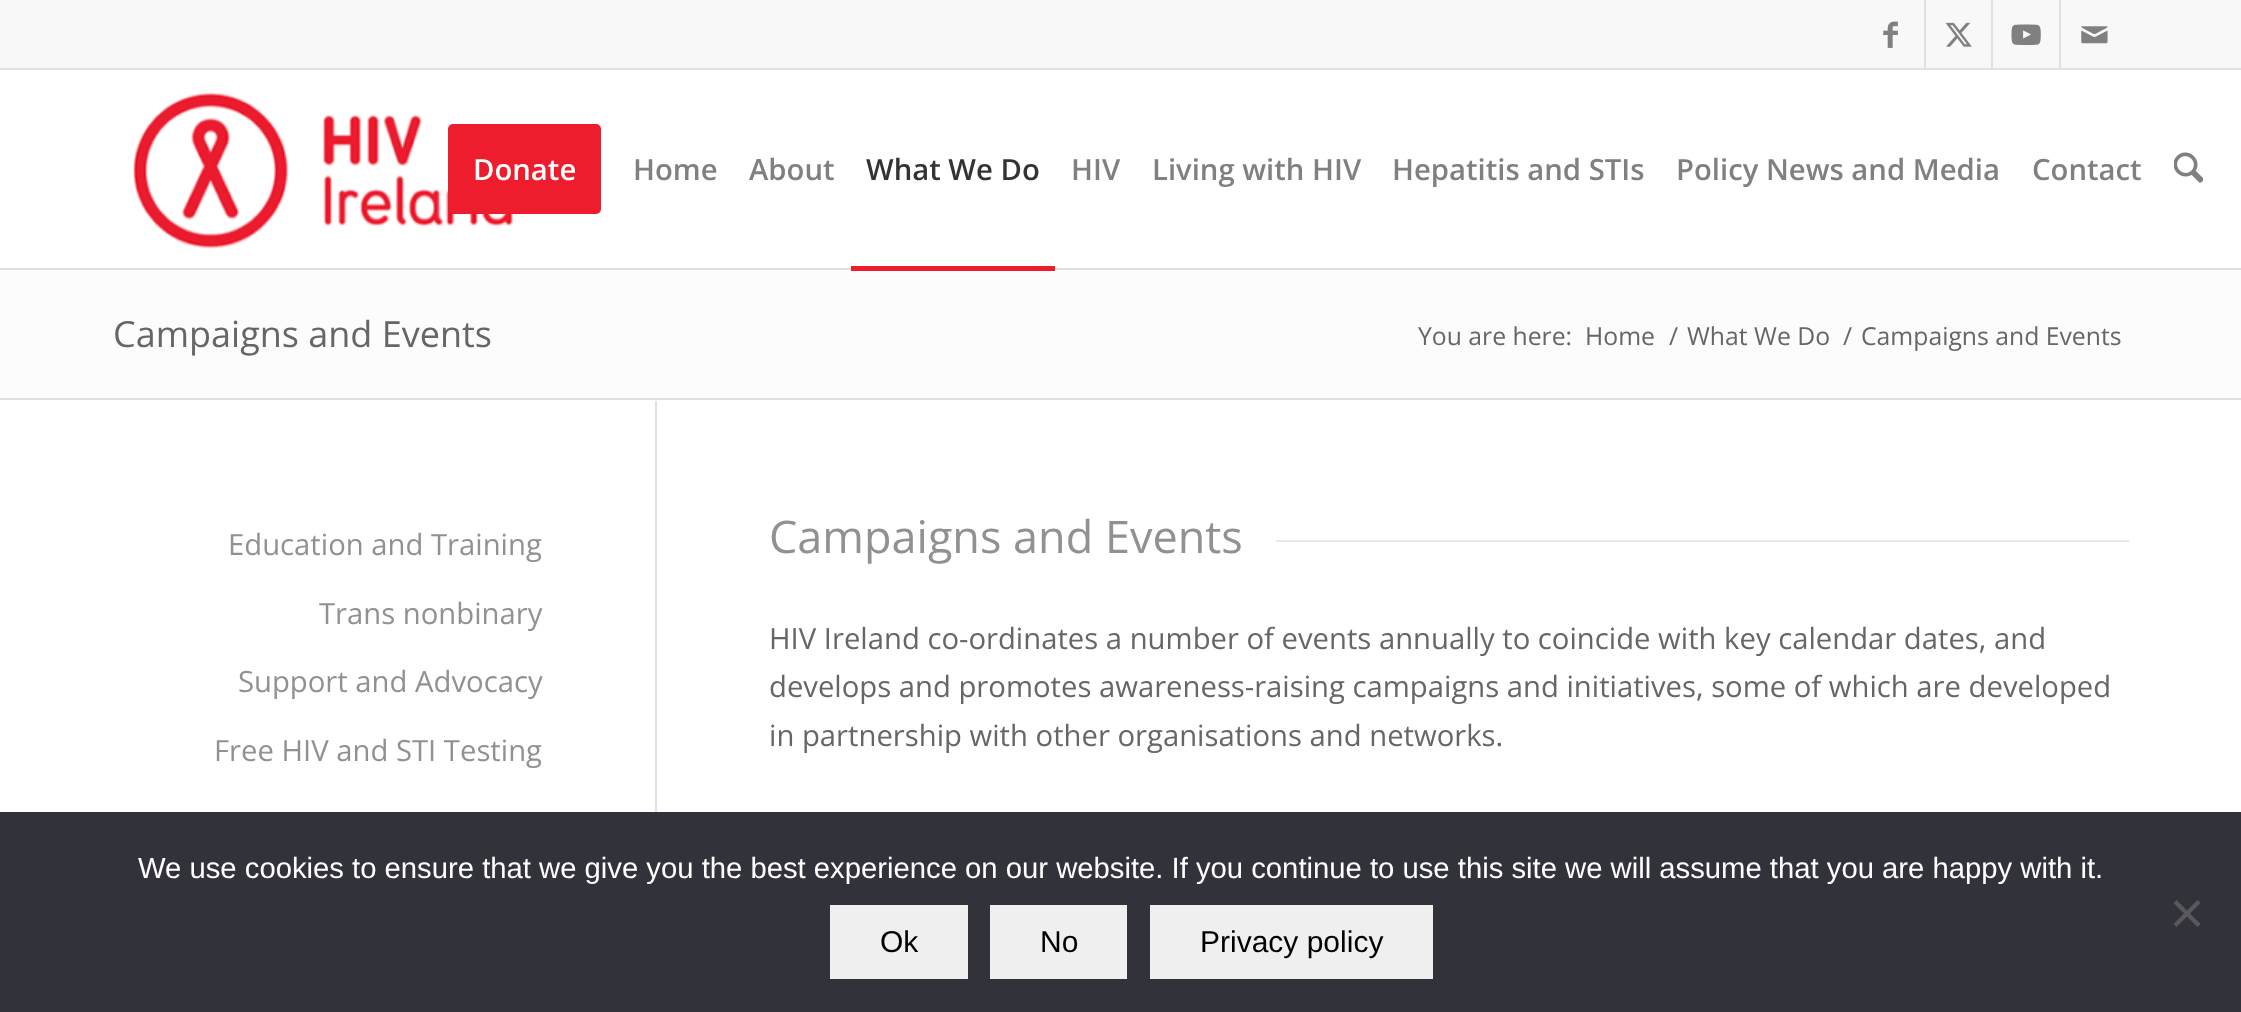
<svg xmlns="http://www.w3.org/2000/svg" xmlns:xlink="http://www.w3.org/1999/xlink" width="2241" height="1012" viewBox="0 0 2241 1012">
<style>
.cls-1{font:600 29.25px Open Sans;fill:#ffffff}
.cls-2{font:600 29.25px Open Sans;fill:#808080}
.cls-3{font:600 29.25px Open Sans;fill:#333333}
.cls-4{font:36px Open Sans;fill:#666666}
.cls-5{font:24.75px Open Sans;fill:#666666}
.cls-6{font:29.25px Open Sans;fill:#919191}
.cls-7{font:45px Open Sans;fill:#919191}
.cls-8{font:29.25px Open Sans;fill:#666666}
.cls-9{font:29.25px Liberation Sans;fill:#ffffff}
.cls-10{font:30px Liberation Sans;fill:#000000}
</style>
<rect width="100%" height="100%" fill="#ffffff"/>
<rect fill="#f8f8f8" x="0" y="0" width="2241" height="68"/>
<rect fill="#e1e1e1" x="0" y="68" width="2241" height="2"/>
<rect fill="#e1e1e1" x="1924" y="0" width="2" height="68"/>
<image xlink:href="image0.png" x="1883" y="21" width="15" height="27"/>
<rect fill="#e1e1e1" x="1991" y="0" width="2" height="68"/>
<image xlink:href="image1.png" x="1945" y="22" width="27" height="25"/>
<rect fill="#e1e1e1" x="2059" y="0" width="2" height="68"/>
<image xlink:href="image2.png" x="2011" y="24" width="30" height="22"/>
<image xlink:href="image3.png" x="2081" y="26" width="27" height="18"/>
<rect fill="#e1e1e1" x="0" y="268" width="2241" height="2"/>
<image xlink:href="image4.png" x="132" y="92" width="382" height="157"/>
<rect fill="#ed1d2e" stroke="#ed1d2e" stroke-width="5" x="450.5" y="126.5" width="148" height="85" rx="2.5"/>
<rect fill="#fcfcfc" x="0" y="270" width="2241" height="128"/>
<rect fill="#ed1d2e" x="851" y="266" width="204" height="5"/>
<image xlink:href="image5.png" x="2174" y="152" width="29" height="31"/>
<rect fill="#e1e1e1" x="0" y="398" width="2241" height="2"/>
<rect fill="#e1e1e1" x="655" y="401" width="2" height="411"/>
<rect fill="#e9e9e9" x="1276" y="540" width="853" height="2"/>
<rect fill="#32323a" x="0" y="812" width="2241" height="200"/>
<path fill="#59595d" d="M2197.5 900L2200.5 903L2176.5 927L2173.5 924Z"/>
<path fill="#59595d" d="M2173.5 903L2176.5 900L2200.5 924L2197.5 927Z"/>
<rect fill="#efefef" x="830" y="905" width="138" height="74"/>
<rect fill="#efefef" x="990" y="905" width="137" height="74"/>
<rect fill="#efefef" x="1150" y="905" width="283" height="74"/>
<text class="cls-1" x="473" y="180">Donate</text>
<text class="cls-2" x="633" y="180">Home</text>
<text class="cls-2" x="749" y="180">About</text>
<text class="cls-3" x="866" y="180">What We Do</text>
<text class="cls-2" x="1071" y="180">HIV</text>
<text class="cls-2" x="1152" y="180">Living with HIV</text>
<text class="cls-2" x="1392" y="180">Hepatitis and STIs</text>
<text class="cls-2" x="1676" y="180">Policy News and Media</text>
<text class="cls-2" x="2032" y="180">Contact</text>
<text class="cls-4" x="113" y="347">Campaigns and Events</text>
<text class="cls-5" x="1418" y="345">You are here:</text>
<text class="cls-5" x="1585" y="345">Home</text>
<text class="cls-5" x="1669" y="345">/</text>
<text class="cls-5" x="1687" y="345">What We Do</text>
<text class="cls-5" x="1843" y="345">/</text>
<text class="cls-5" x="1861" y="345">Campaigns and Events</text>
<text class="cls-6" x="228" y="555">Education and Training</text>
<text class="cls-6" x="319" y="624">Trans nonbinary</text>
<text class="cls-6" x="238" y="692">Support and Advocacy</text>
<text class="cls-6" x="214" y="761">Free HIV and STI Testing</text>
<text class="cls-7" x="769" y="553">Campaigns and Events</text>
<text class="cls-8"><tspan x="769" y="649">HIV Ireland co-ordinates a number of events annually to coincide with key calendar dates, and</tspan><tspan x="769" y="697">develops and promotes awareness-raising campaigns and initiatives, some of which are developed</tspan><tspan x="769" y="746">in partnership with other organisations and networks.</tspan></text>
<text class="cls-9" x="138" y="878">We use cookies to ensure that we give you the best experience on our website. If you continue to use this site we will assume that you are happy with it.</text>
<text class="cls-10" x="880" y="952">Ok</text>
<text class="cls-10" x="1040" y="952">No</text>
<text class="cls-10" x="1200" y="952">Privacy policy</text>
</svg>
